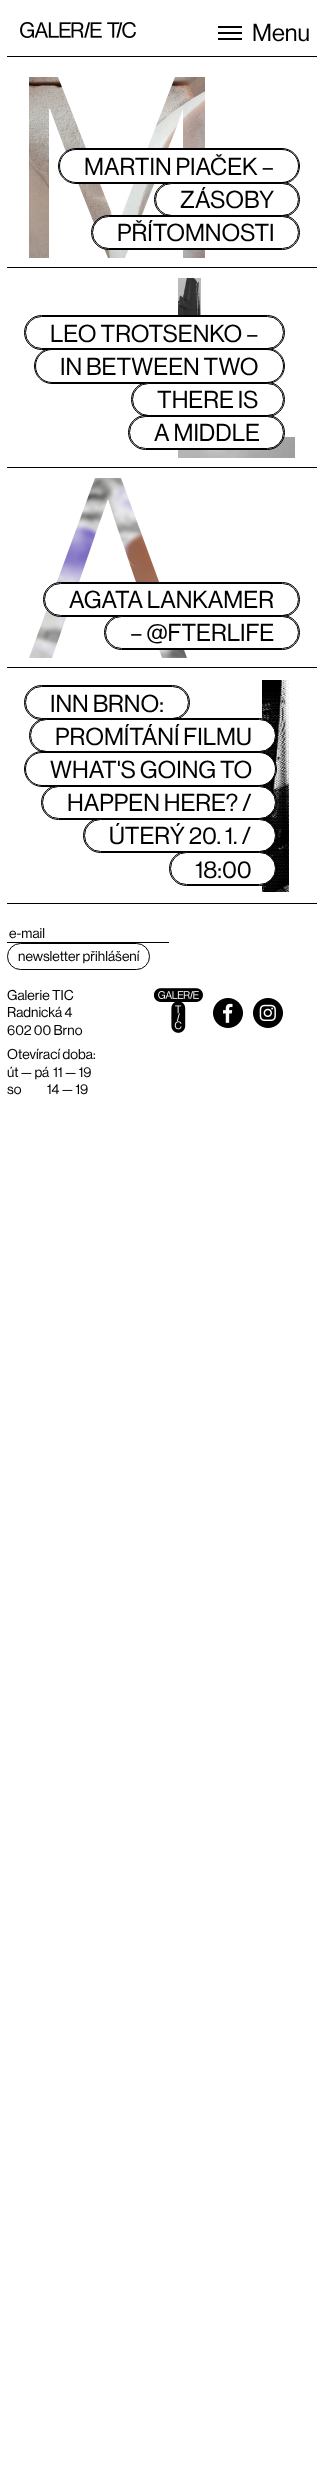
<svg xmlns="http://www.w3.org/2000/svg" xmlns:xlink="http://www.w3.org/1999/xlink" width="324" height="2475" viewBox="0 0 324 2475">
<style>
.cls-1{font:500 24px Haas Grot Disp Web;fill:#000000}
.cls-2{font:500 14px Haas Grot Disp Web;fill:#000000}
</style>
<defs>
<clipPath id="clip1"><rect x="23" y="67" width="188" height="200"/></clipPath>
<clipPath id="clip2"><rect x="172" y="268" width="129" height="199"/></clipPath>
<clipPath id="clip3"><rect x="23" y="468" width="170" height="199"/></clipPath>
</defs>
<rect width="100%" height="100%" fill="#ffffff"/>
<image xlink:href="image0.png" x="20" y="22" width="116" height="16"/>
<rect fill="#000000" x="218" y="26" width="24" height="2"/>
<rect fill="#000000" x="218" y="32" width="24" height="2"/>
<rect fill="#000000" x="218" y="38" width="24" height="2"/>
<rect fill="#000000" x="7" y="56" width="310" height="1"/>
<image xlink:href="image1.png" x="29" y="77" width="176" height="181"/>
<g clip-path="url(#clip1)">
<path fill="#ffffff" d="M23 67V268H211V67ZM205 258H183V109L177 126L125 258H108C88 208 68 159 50 109H49V258H29V77H58L117 227L175 77H205Z"/>
</g>
<rect fill="none" stroke="#000000" x="58.5" y="148.5" width="241" height="35" rx="17.5"/>
<rect fill="#ffffff" stroke="#000000" x="59.5" y="149.5" width="239" height="33" rx="16.5"/>
<rect fill="none" stroke="#000000" x="154.5" y="182.5" width="145" height="34" rx="17"/>
<rect fill="#ffffff" stroke="#000000" x="155.5" y="183.5" width="143" height="32" rx="16"/>
<rect fill="none" stroke="#000000" x="91.5" y="215.5" width="208" height="34" rx="17"/>
<rect fill="#ffffff" stroke="#000000" x="92.5" y="216.5" width="206" height="32" rx="16"/>
<rect fill="#000000" x="7" y="267" width="310" height="1"/>
<image xlink:href="image2.png" x="178" y="278" width="117" height="180"/>
<g clip-path="url(#clip2)">
<path fill="#ffffff" d="M172 268V468H301V268ZM295 458H178V278H201V437H295Z"/>
</g>
<rect fill="none" stroke="#000000" x="24.5" y="315.5" width="260" height="34" rx="17"/>
<rect fill="#ffffff" stroke="#000000" x="25.5" y="316.5" width="258" height="32" rx="16"/>
<rect fill="none" stroke="#000000" x="34.5" y="348.5" width="250" height="35" rx="17.5"/>
<rect fill="#ffffff" stroke="#000000" x="35.5" y="349.5" width="248" height="33" rx="16.5"/>
<rect fill="none" stroke="#000000" x="131.5" y="382.5" width="153" height="34" rx="17"/>
<rect fill="#ffffff" stroke="#000000" x="132.5" y="383.5" width="151" height="32" rx="16"/>
<rect fill="none" stroke="#000000" x="128.5" y="415.5" width="156" height="34" rx="17"/>
<rect fill="#ffffff" stroke="#000000" x="129.5" y="416.5" width="154" height="32" rx="16"/>
<rect fill="#000000" x="7" y="467" width="310" height="1"/>
<image xlink:href="image3.png" x="29" y="478" width="158" height="180"/>
<g clip-path="url(#clip3)">
<path fill="#ffffff" d="M116 524L137 585H78L99 524L108 499ZM193 468V668H23V468ZM187 658L121 478H95L29 658H52L71 603H143L162 658Z"/>
</g>
<rect fill="none" stroke="#000000" x="43.5" y="582.5" width="256" height="34" rx="17"/>
<rect fill="#ffffff" stroke="#000000" x="44.5" y="583.5" width="254" height="32" rx="16"/>
<rect fill="none" stroke="#000000" x="104.5" y="615.5" width="195" height="34" rx="17"/>
<rect fill="#ffffff" stroke="#000000" x="105.5" y="616.5" width="193" height="32" rx="16"/>
<rect fill="#000000" x="7" y="667" width="310" height="1"/>
<rect fill="none" stroke="#000000" x="24.5" y="685.5" width="165" height="34" rx="17"/>
<rect fill="#ffffff" stroke="#000000" x="25.5" y="686.5" width="163" height="32" rx="16"/>
<image xlink:href="image4.png" x="262" y="680" width="27" height="212"/>
<rect fill="none" stroke="#000000" x="29.5" y="718.5" width="247" height="34" rx="17"/>
<rect fill="#ffffff" stroke="#000000" x="30.5" y="719.5" width="245" height="32" rx="16"/>
<rect fill="none" stroke="#000000" x="24.5" y="751.5" width="252" height="35" rx="17.5"/>
<rect fill="#ffffff" stroke="#000000" x="25.5" y="752.5" width="250" height="33" rx="16.5"/>
<rect fill="none" stroke="#000000" x="41.5" y="785.5" width="235" height="34" rx="17"/>
<rect fill="#ffffff" stroke="#000000" x="42.5" y="786.5" width="233" height="32" rx="16"/>
<rect fill="none" stroke="#000000" x="83.5" y="818.5" width="193" height="34" rx="17"/>
<rect fill="#ffffff" stroke="#000000" x="84.5" y="819.5" width="191" height="32" rx="16"/>
<rect fill="none" stroke="#000000" x="169.5" y="851.5" width="107" height="34" rx="17"/>
<rect fill="#ffffff" stroke="#000000" x="170.5" y="852.5" width="105" height="32" rx="16"/>
<rect fill="#000000" x="7" y="903" width="310" height="1"/>
<rect fill="#000000" x="7" y="942" width="162" height="1"/>
<rect fill="none" stroke="#000000" x="7.5" y="943.5" width="142" height="26" rx="13"/>
<image xlink:href="image5.png" x="154" y="988" width="49" height="45"/>
<image xlink:href="image6.png" x="213" y="998" width="30" height="30"/>
<image xlink:href="image7.png" x="253" y="998" width="30" height="30"/>
<text class="cls-1" x="252" y="41">Menu</text>
<text class="cls-1" x="84" y="175">MARTIN PIAČEK –</text>
<text class="cls-1" x="180" y="208">ZÁSOBY</text>
<text class="cls-1" x="117" y="241">PŘÍTOMNOSTI</text>
<text class="cls-1" x="50" y="342">LEO TROTSENKO –</text>
<text class="cls-1" x="60" y="375">IN BETWEEN TWO</text>
<text class="cls-1" x="157" y="408">THERE IS</text>
<text class="cls-1" x="154" y="441">A MIDDLE</text>
<text class="cls-1" x="69" y="608">AGATA LANKAMER</text>
<text class="cls-1" x="130" y="641">– @FTERLIFE</text>
<text class="cls-1" x="50" y="712">INN BRNO:</text>
<text class="cls-1" x="55" y="745">PROMÍTÁNÍ FILMU</text>
<text class="cls-1" x="50" y="778">WHAT'S GOING TO</text>
<text class="cls-1" x="67" y="811">HAPPEN HERE? /</text>
<text class="cls-1" x="109" y="844">ÚTERÝ 20. 1. /</text>
<text class="cls-1" x="195" y="878">18:00</text>
<text class="cls-2" x="9" y="938">e-mail</text>
<text class="cls-2" x="18" y="961">newsletter přihlášení</text>
<text class="cls-2"><tspan x="7" y="1000">Galerie TIC</tspan><tspan x="7" y="1017">Radnická 4</tspan><tspan x="7" y="1035">602 00 Brno</tspan><tspan x="7" y="1059">Otevírací doba:</tspan><tspan x="7" y="1077">út — pá</tspan></text>
<text class="cls-2" x="53" y="1077">11 — 19</text>
<text class="cls-2" xml:space="preserve" x="7" y="1094">so           14 — 19</text>
</svg>
